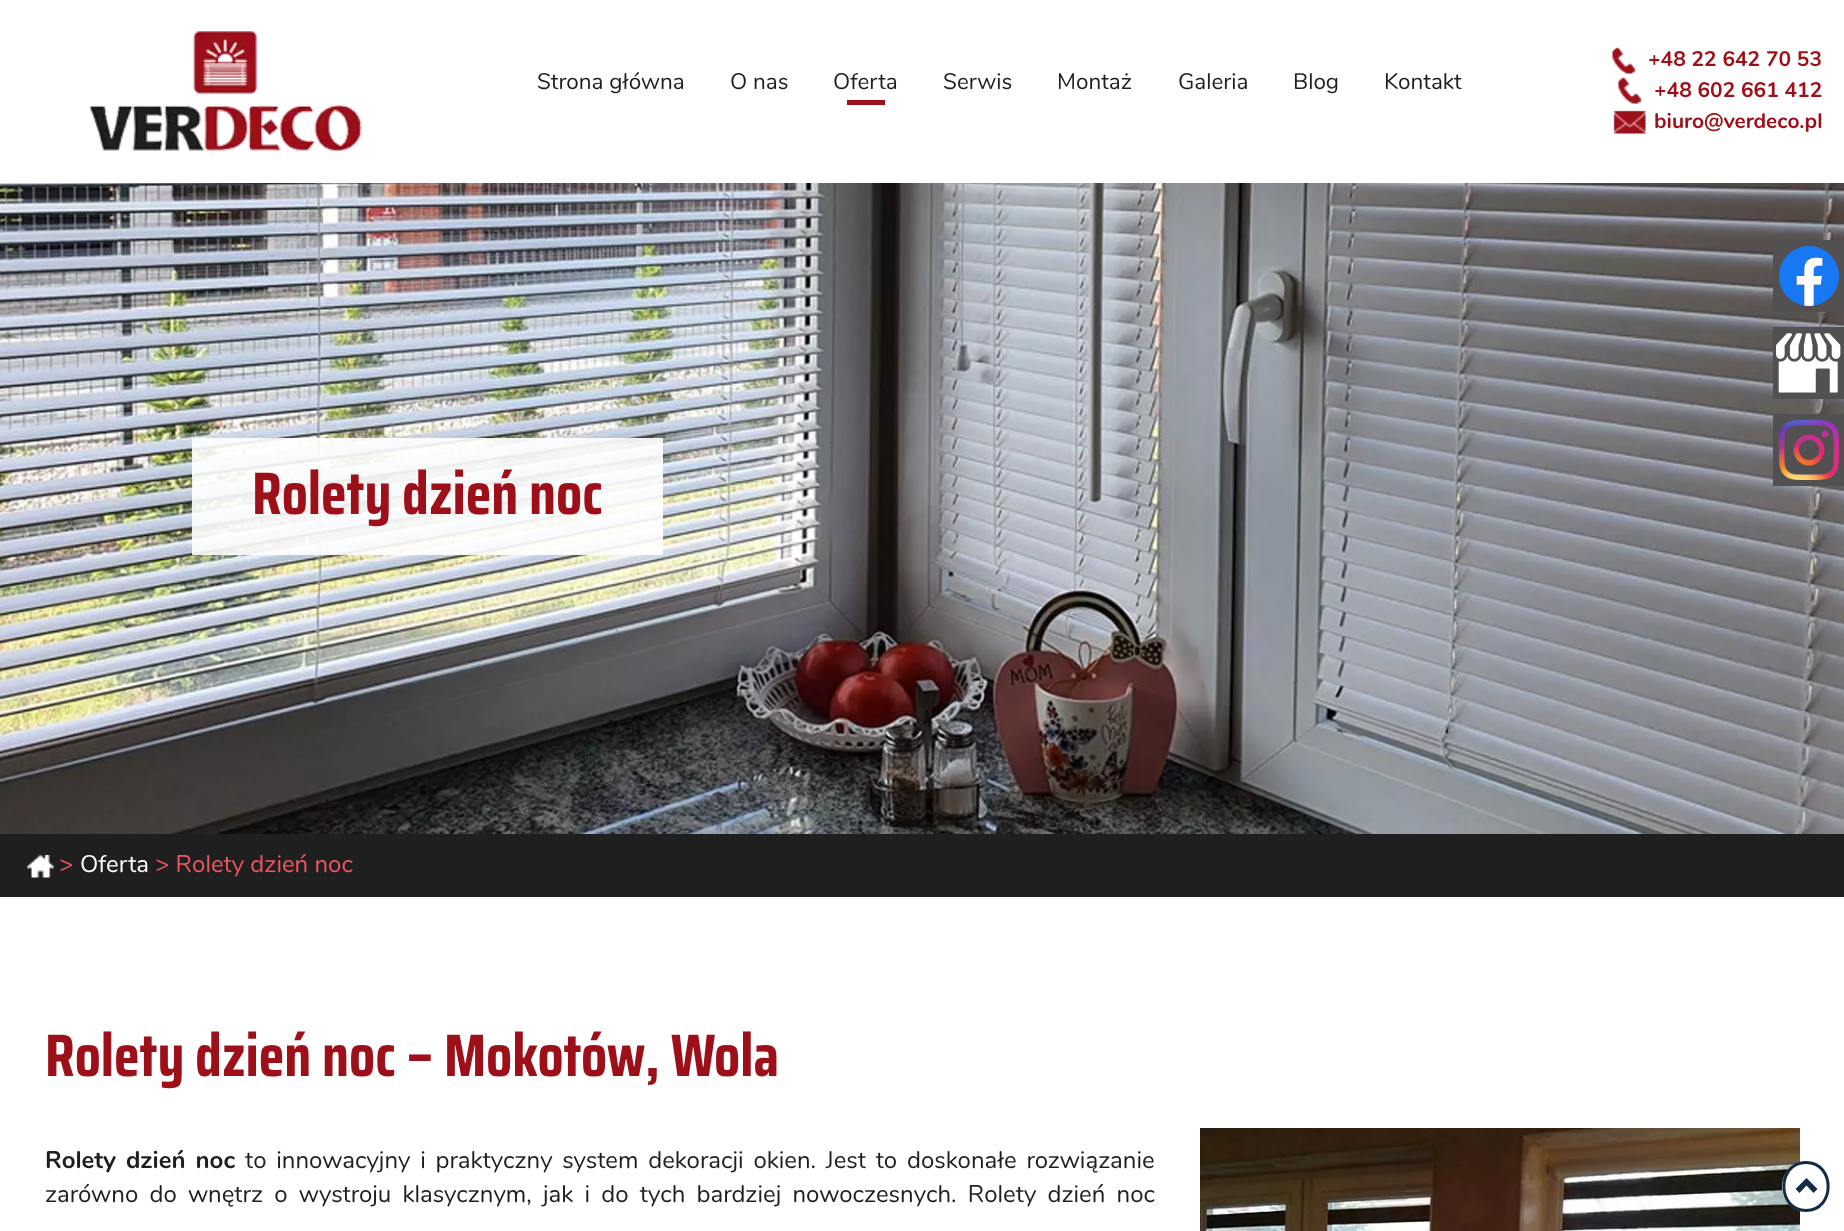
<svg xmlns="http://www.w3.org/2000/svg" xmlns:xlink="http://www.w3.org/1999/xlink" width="1844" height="1231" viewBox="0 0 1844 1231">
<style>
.cls-1{font:22.5px Nunito;fill:#1f1f1f}
.cls-2{font:bold 21px Nunito;fill:#9d1019}
.cls-3{font:bold 60px Saira Condensed;fill:#9d1019}
.cls-4{font:24px Nunito;fill:#ee5660}
.cls-5{font:24px Nunito;fill:#ffffff}
.cls-6{font:bold 24px Nunito;fill:#1f1f1f}
.cls-7{font:24px Nunito;fill:#1f1f1f}
</style>
<rect width="100%" height="100%" fill="#ffffff"/>
<image xlink:href="image0.png" x="90" y="31" width="272" height="120"/>
<rect fill="#9d1019" x="847" y="100" width="38" height="5"/>
<image xlink:href="image1.png" x="1612" y="47" width="24" height="27"/>
<image xlink:href="image1.png" x="1618" y="77" width="24" height="27"/>
<image xlink:href="image2.png" x="1613" y="110" width="33" height="24"/>
<image xlink:href="image3.png" x="0" y="183" width="1844" height="651"/>
<rect fill="#ffffff" fill-opacity="0.9" x="192" y="438" width="471" height="117"/>
<rect fill="#1f1f1f" x="0" y="834" width="1844" height="63"/>
<image xlink:href="image4.png" x="27" y="855" width="27" height="23"/>
<image xlink:href="image5.png" x="1200" y="1128" width="600" height="103"/>
<rect fill="#525050" x="1773" y="240" width="71" height="72"/>
<image xlink:href="image6.png" x="1779" y="246" width="60" height="60"/>
<rect fill="#525050" x="1773" y="327" width="71" height="72"/>
<image xlink:href="image7.png" x="1776" y="333" width="65" height="60"/>
<rect fill="#525050" x="1773" y="414" width="71" height="72"/>
<image xlink:href="image8.png" x="1779" y="420" width="60" height="60"/>
<ellipse fill="#ffffff" cx="1806" cy="1186.5" rx="24" ry="25.5"/>
<path fill="none" stroke="#122b46" stroke-width="3" d="M1806 1162.5C1835.5 1162.5 1835.5 1210.5 1806 1210.5C1776.5 1210.5 1776.5 1162.5 1806 1162.5Z"/>
<path fill="#122b46" d="M1817.5 1189L1813.5 1193L1806.5 1185.5L1799.5 1193L1795.5 1189L1806.5 1178Z"/>
<text class="cls-1" x="537" y="89">Strona główna</text>
<text class="cls-1" x="730" y="89">O nas</text>
<text class="cls-1" x="833" y="89">Oferta</text>
<text class="cls-1" x="943" y="89">Serwis</text>
<text class="cls-1" x="1057" y="89">Montaż</text>
<text class="cls-1" x="1178" y="89">Galeria</text>
<text class="cls-1" x="1293" y="89">Blog</text>
<text class="cls-1" x="1384" y="89">Kontakt</text>
<text class="cls-2" x="1648" y="66">+48 22 642 70 53</text>
<text class="cls-2"><tspan x="1654" y="97">+48 602 661 412</tspan><tspan x="1654" y="128">biuro@verdeco.pl</tspan></text>
<text class="cls-3" x="252" y="514">Rolety dzień noc</text>
<text class="cls-4" x="59" y="872">&gt;</text>
<text class="cls-5" x="80" y="872">Oferta</text>
<text class="cls-4" x="155" y="872">&gt; Rolety dzień noc</text>
<text class="cls-3" x="45" y="1076">Rolety dzień noc – Mokotów, Wola</text>
<text class="cls-6" x="45" y="1168" word-spacing="3.6">Rolety dzień noc</text>
<text class="cls-7" x="245" y="1168" word-spacing="3.6">to innowacyjny i praktyczny system dekoracji okien. Jest to doskonałe rozwiązanie</text>
<text class="cls-7" x="45" y="1202" word-spacing="5">zarówno do wnętrz o wystroju klasycznym, jak i do tych bardziej nowoczesnych. Rolety dzień noc</text>
</svg>
